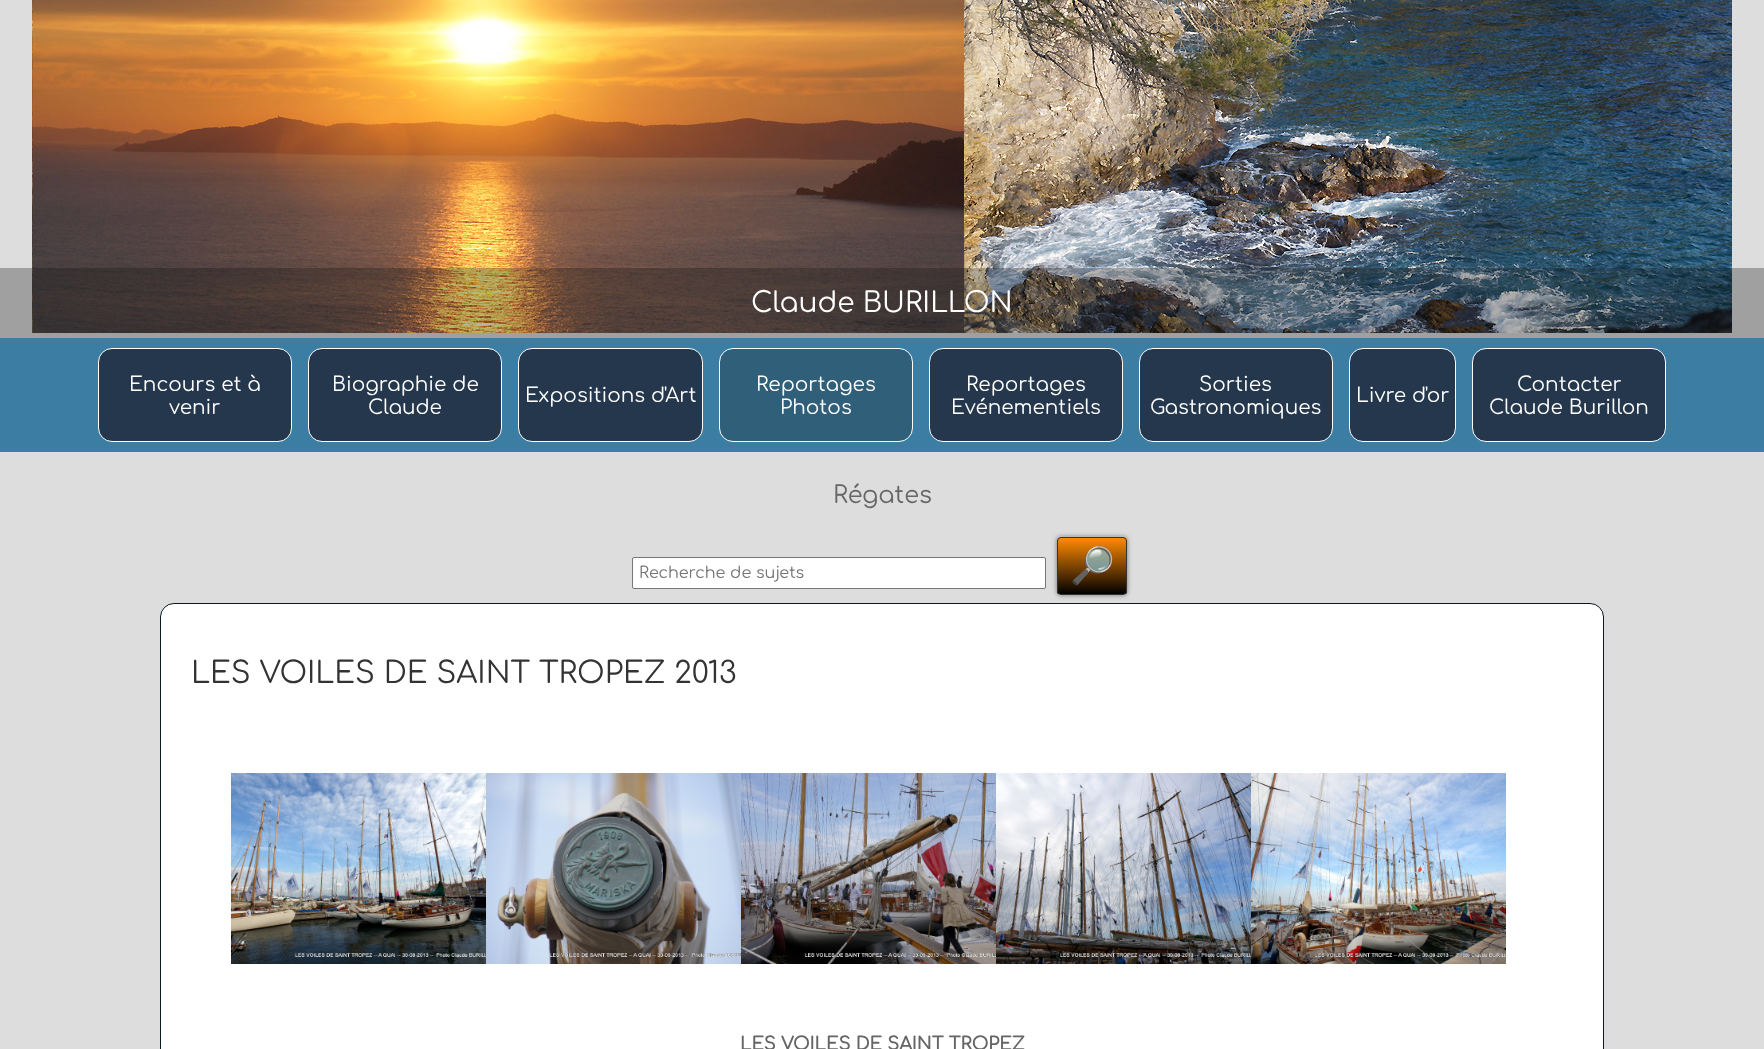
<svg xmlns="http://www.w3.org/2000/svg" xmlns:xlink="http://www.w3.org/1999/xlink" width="1764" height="1049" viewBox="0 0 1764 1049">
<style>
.cls-1{font:28px Comfortaa;fill:#ffffff}
.cls-2{font:20px Comfortaa;fill:#ffffff}
.cls-3{font:24px Comfortaa;fill:#666666}
.cls-4{font:16px Comfortaa;fill:#757575}
.cls-5{font:36px Noto Color Emoji;fill:#ffffff}
.cls-6{font:30px Comfortaa;fill:#333333}
.cls-7{font:bold 18px Comfortaa;fill:#666666}
</style>
<defs>
<clipPath id="clip1"><rect x="1057" y="537" width="70" height="58" rx="4"/></clipPath>
<linearGradient id="g1" gradientUnits="userSpaceOnUse" x1="1092" y1="538" x2="1092" y2="594"><stop offset="0" stop-color="#ff8a02"/><stop offset="1" stop-color="#000000"/></linearGradient>
</defs>
<rect width="100%" height="100%" fill="#dddddd"/>
<image xlink:href="image0.png" x="32" y="0" width="1700" height="333"/>
<rect fill="#141414" fill-opacity="0.3" x="0" y="268" width="1764" height="70"/>
<rect fill="#3c7ea3" x="0" y="338" width="1764" height="114"/>
<rect fill="#25374c" stroke="#ffffff" x="98.5" y="348.5" width="193" height="93" rx="13.5"/>
<rect fill="#25374c" stroke="#ffffff" x="308.5" y="348.5" width="193" height="93" rx="13.5"/>
<rect fill="#25374c" stroke="#ffffff" x="518.5" y="348.5" width="184" height="93" rx="13.5"/>
<rect fill="#305f79" stroke="#ffffff" x="719.5" y="348.5" width="193" height="93" rx="13.5"/>
<rect fill="#25374c" stroke="#ffffff" x="929.5" y="348.5" width="193" height="93" rx="13.5"/>
<rect fill="#25374c" stroke="#ffffff" x="1139.5" y="348.5" width="193" height="93" rx="13.5"/>
<rect fill="#25374c" stroke="#ffffff" x="1349.5" y="348.5" width="106" height="93" rx="13.5"/>
<rect fill="#25374c" stroke="#ffffff" x="1472.5" y="348.5" width="193" height="93" rx="13.5"/>
<rect fill="#ffffff" stroke="#767676" x="632.5" y="557.5" width="413" height="31" rx="1.5"/>
<path fill="#ebebeb" d="M1061 536H1123C1125 536 1127 538 1127 540V541C1127 539 1125 537 1123 537H1061C1059 537 1057 539 1057 541C1057 538 1058 536 1061 536Z"/>
<rect fill="#000000" fill-opacity="0.5" filter="blur(2.5px)" x="1057" y="537" width="70" height="58" rx="4"/>
<g clip-path="url(#clip1)">
<rect fill="url(#g1)" x="1057" y="538" width="70" height="56"/>
</g>
<rect fill="none" stroke="#333333" x="1057.5" y="537.5" width="69" height="57" rx="3.5"/>
<rect fill="#ffffff" stroke="#081a1e" x="160.5" y="603.5" width="1443" height="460" rx="13.5"/>
<image xlink:href="image1.png" x="231" y="773" width="255" height="191"/>
<image xlink:href="image2.png" x="486" y="773" width="255" height="191"/>
<image xlink:href="image3.png" x="741" y="773" width="255" height="191"/>
<image xlink:href="image4.png" x="996" y="773" width="255" height="191"/>
<image xlink:href="image5.png" x="1251" y="773" width="255" height="191"/>
<text class="cls-1" x="751" y="312">Claude BURILLON</text>
<text class="cls-2" x="129" y="391">Encours et à</text>
<text class="cls-2" x="169" y="414">venir</text>
<text class="cls-2" x="332" y="391">Biographie de</text>
<text class="cls-2" x="368" y="414">Claude</text>
<text class="cls-2" x="525" y="402">Expositions d'Art</text>
<text class="cls-2" x="756" y="391">Reportages</text>
<text class="cls-2" x="780" y="414">Photos</text>
<text class="cls-2" x="966" y="391">Reportages</text>
<text class="cls-2" x="951" y="414">Evénementiels</text>
<text class="cls-2" x="1199" y="391">Sorties</text>
<text class="cls-2" x="1150" y="414">Gastronomiques</text>
<text class="cls-2" x="1356" y="402">Livre d'or</text>
<text class="cls-2" x="1517" y="391">Contacter</text>
<text class="cls-2" x="1489" y="414">Claude Burillon</text>
<text class="cls-3" x="833" y="503">Régates</text>
<text class="cls-4" x="639" y="578">Recherche de sujets</text>
<text class="cls-5" x="1070" y="578">🔎</text>
<text class="cls-6" x="191" y="683">LES VOILES DE SAINT TROPEZ 2013</text>
<text class="cls-7" x="740" y="1050">LES VOILES DE SAINT TROPEZ</text>
</svg>
